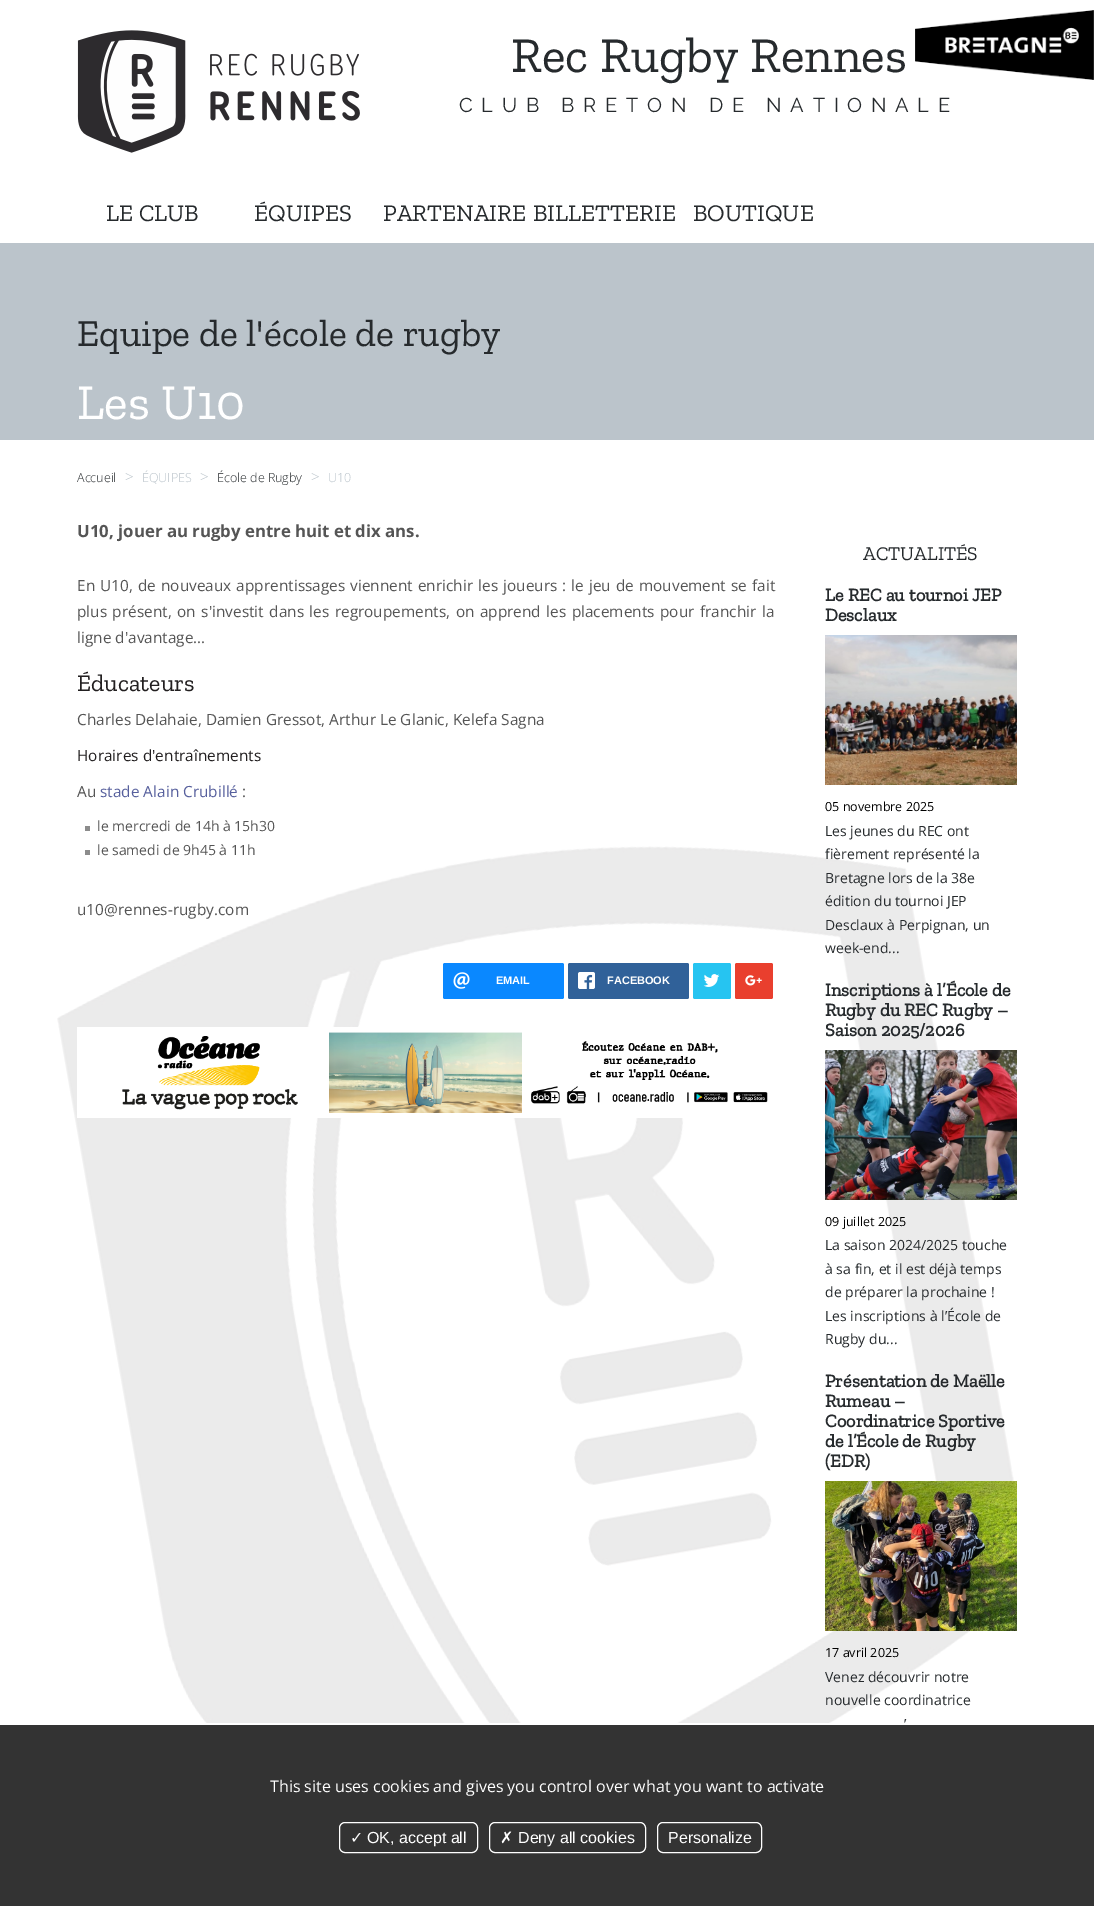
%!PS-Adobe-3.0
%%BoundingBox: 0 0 1094 1906
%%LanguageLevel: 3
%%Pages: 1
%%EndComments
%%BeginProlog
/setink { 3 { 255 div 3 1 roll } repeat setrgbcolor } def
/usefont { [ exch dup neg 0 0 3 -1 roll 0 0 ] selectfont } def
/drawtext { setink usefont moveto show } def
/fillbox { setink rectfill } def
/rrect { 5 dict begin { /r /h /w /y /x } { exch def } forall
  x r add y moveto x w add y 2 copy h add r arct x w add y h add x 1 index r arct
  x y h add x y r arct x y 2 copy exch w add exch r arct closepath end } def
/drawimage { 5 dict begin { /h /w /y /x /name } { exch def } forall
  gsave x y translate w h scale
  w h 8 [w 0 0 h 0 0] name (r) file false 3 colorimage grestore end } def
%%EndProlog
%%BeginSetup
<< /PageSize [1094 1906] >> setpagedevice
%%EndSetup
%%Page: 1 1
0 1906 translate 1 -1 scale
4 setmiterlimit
0 0 1094 1906 255 255 255 fillbox
(assets/img1.rgb) 77 30 283 123 drawimage
(Rec Rugby Rennes) 511 72 /ZillaSlab-Regular 50 38 42 45 drawtext
/Raleway-Regular 20 usefont
459 112 moveto 8.7 0 (CLUB BRETON DE NATIONALE) ashow
(assets/img2.rgb) 915 10 179 70 drawimage
(LE CLUB) 106 221 /ZillaSlab-Regular 24 38 42 45 drawtext
(ÉQUIPES) 254 221 /ZillaSlab-Regular 24 38 42 45 drawtext
(PARTENAIRE) 383 221 /ZillaSlab-Regular 24 38 42 45 drawtext
(BILLETTERIE) 533 221 /ZillaSlab-Regular 24 38 42 45 drawtext
(BOUTIQUE) 693 221 /ZillaSlab-Regular 24 38 42 45 drawtext
0 243 1094 197 187 196 203 fillbox
(Equipe de l'école de rugby) 77 346 /ZillaSlab-Regular 38 38 42 45 drawtext
(Les U10) 77 419 /ZillaSlab-Regular 50 255 255 255 drawtext
(Accueil) 77 482 /OpenSans-Light 12.5 38 42 45 drawtext
(>) 125 482 /OpenSans-Light 15 187 196 203 drawtext
(ÉQUIPES) 142 482 /OpenSans-Light 12.5 187 196 203 drawtext
(>) 200 482 /OpenSans-Light 15 187 196 203 drawtext
(École de Rugby) 217 482 /OpenSans-Light 12.5 38 42 45 drawtext
(>) 311 482 /OpenSans-Light 15 187 196 203 drawtext
(U10) 328 482 /OpenSans-Light 12.5 187 196 203 drawtext
(U10, jouer au rugby entre huit et dix ans.) 77 537 /OpenSans-Bold 16.8 85 85 85 drawtext
/OpenSans-Regular 15.4 usefont
77 591 moveto 1 0 32 (En U10, de nouveaux apprentissages viennent enrichir les joueurs : le jeu de mouvement se fait) widthshow
77 617 moveto 1.4 0 32 (plus présent, on s'investit dans les regroupements, on apprend les placements pour franchir la) widthshow
(ligne d'avantage...) 77 643 /OpenSans-Regular 15.4 85 85 85 drawtext
(Éducateurs) 77 691 /ZillaSlab-Regular 24 34 31 32 drawtext
(Charles Delahaie, Damien Gressot, Arthur Le Glanic, Kelefa Sagna) 77 725 /OpenSans-Regular 15.4 85 85 85 drawtext
(Horaires d'entraînements) 77 761 /OpenSans-Regular 15.4 34 31 32 drawtext
(Au) 77 797 /OpenSans-Regular 15.4 85 85 85 drawtext
(stade Alain Crubillé) 100 797 /OpenSans-Regular 15.4 87 96 157 drawtext
(:) 242 797 /OpenSans-Regular 15.4 85 85 85 drawtext
85 826 5 5 140 140 140 fillbox
(le mercredi de 14h à 15h30) 97 831 /OpenSans-Regular 14 85 85 85 drawtext
(assets/img11.rgb) 57 846 957 877 drawimage
85 850 5 5 140 140 140 fillbox
(le samedi de 9h45 à 11h) 97 855 /OpenSans-Regular 14 85 85 85 drawtext
(u10@rennes-rugby.com) 77 915 /OpenSans-Regular 15.4 85 85 85 drawtext
10 136 255 setink
443 963 121 36 2 rrect fill
(assets/img3.rgb) 453 972 17 17 drawimage
(EMAIL) 496 984 /LiberationSans-Bold 11 255 255 255 drawtext
48 97 153 setink
568 963 121 36 2 rrect fill
(assets/img4.rgb) 578 972 17 17 drawimage
(FACEBOOK) 607 984 /LiberationSans-Bold 11 255 255 255 drawtext
38 196 241 setink
693 963 38 36 2 rrect fill
(assets/img5.rgb) 703 974 17 13 drawimage
233 63 46 setink
735 963 38 36 2 rrect fill
(assets/img6.rgb) 745 975 17 11 drawimage
(assets/img7.rgb) 77 1027 691 91 drawimage
(ACTUALITÉS) 863 560 /ZillaSlab-Regular 19.5 38 42 45 drawtext
(Le REC au tournoi JEP) 825 601 /ZillaSlab-Bold 18.25 38 42 45 drawtext
(Desclaux) 825 621 /ZillaSlab-Bold 18.25 38 42 45 drawtext
(assets/img8.rgb) 825 635 192 150 drawimage
(05 novembre 2025) 825 811 /OpenSans-Regular 12.5 0 0 0 drawtext
(Les jeunes du REC ont) 825 836 /OpenSans-Regular 14 38 42 45 drawtext
(fièrement représenté la) 825 859 /OpenSans-Regular 14 38 42 45 drawtext
(Bretagne lors de la 38e) 825 883 /OpenSans-Regular 14 38 42 45 drawtext
(édition du tournoi JEP) 825 906 /OpenSans-Regular 14 38 42 45 drawtext
(Desclaux à Perpignan, un) 825 930 /OpenSans-Regular 14 38 42 45 drawtext
(week-end...) 825 953 /OpenSans-Regular 14 38 42 45 drawtext
(Inscriptions à l’École de) 825 996 /ZillaSlab-Bold 18.25 38 42 45 drawtext
(Rugby du REC Rugby –) 825 1016 /ZillaSlab-Bold 18.25 38 42 45 drawtext
(Saison 2025/2026) 825 1036 /ZillaSlab-Bold 18.25 38 42 45 drawtext
(assets/img9.rgb) 825 1050 192 150 drawimage
(09 juillet 2025) 825 1226 /OpenSans-Regular 12.5 0 0 0 drawtext
(La saison 2024/2025 touche) 825 1250 /OpenSans-Regular 14 38 42 45 drawtext
(à sa fin, et il est déjà temps) 825 1274 /OpenSans-Regular 14 38 42 45 drawtext
(de préparer la prochaine !) 825 1297 /OpenSans-Regular 14 38 42 45 drawtext
(Les inscriptions à l’École de) 825 1321 /OpenSans-Regular 14 38 42 45 drawtext
(Rugby du...) 825 1344 /OpenSans-Regular 14 38 42 45 drawtext
(Présentation de Maëlle) 825 1387 /ZillaSlab-Bold 18.25 38 42 45 drawtext
(Rumeau –) 825 1407 /ZillaSlab-Bold 18.25 38 42 45 drawtext
(Coordinatrice Sportive) 825 1427 /ZillaSlab-Bold 18.25 38 42 45 drawtext
(de l’École de Rugby) 825 1447 /ZillaSlab-Bold 18.25 38 42 45 drawtext
(\(EDR\)) 825 1467 /ZillaSlab-Bold 18.25 38 42 45 drawtext
(assets/img10.rgb) 825 1481 192 150 drawimage
(17 avril 2025) 825 1657 /OpenSans-Regular 12.5 0 0 0 drawtext
(Venez découvrir notre) 825 1682 /OpenSans-Regular 14 38 42 45 drawtext
(nouvelle coordinatrice) 825 1705 /OpenSans-Regular 14 38 42 45 drawtext
(’) 904 1729 /OpenSans-Regular 14 38 42 45 drawtext
0 1725 1094 181 51 51 51 fillbox
(This site uses cookies and gives you control over what you want to activate) 270 1792 /OpenSans-Regular 16 255 255 255 drawtext
339.5 1822.5 138 30 5.5 rrect stroke
(✓) 350 1843 /DejaVuSans-Regular 16 255 255 255 drawtext
(OK, accept all) 367 1843 /LiberationSans-Regular 16 255 255 255 drawtext
489.5 1822.5 156 30 5.5 rrect stroke
(✗) 500 1843 /DejaVuSans-Regular 16 255 255 255 drawtext
(Deny all cookies) 518 1843 /LiberationSans-Regular 16 255 255 255 drawtext
657.5 1822.5 104 30 5.5 rrect stroke
(Personalize) 668 1843 /LiberationSans-Regular 16 255 255 255 drawtext
showpage
%%EOF
